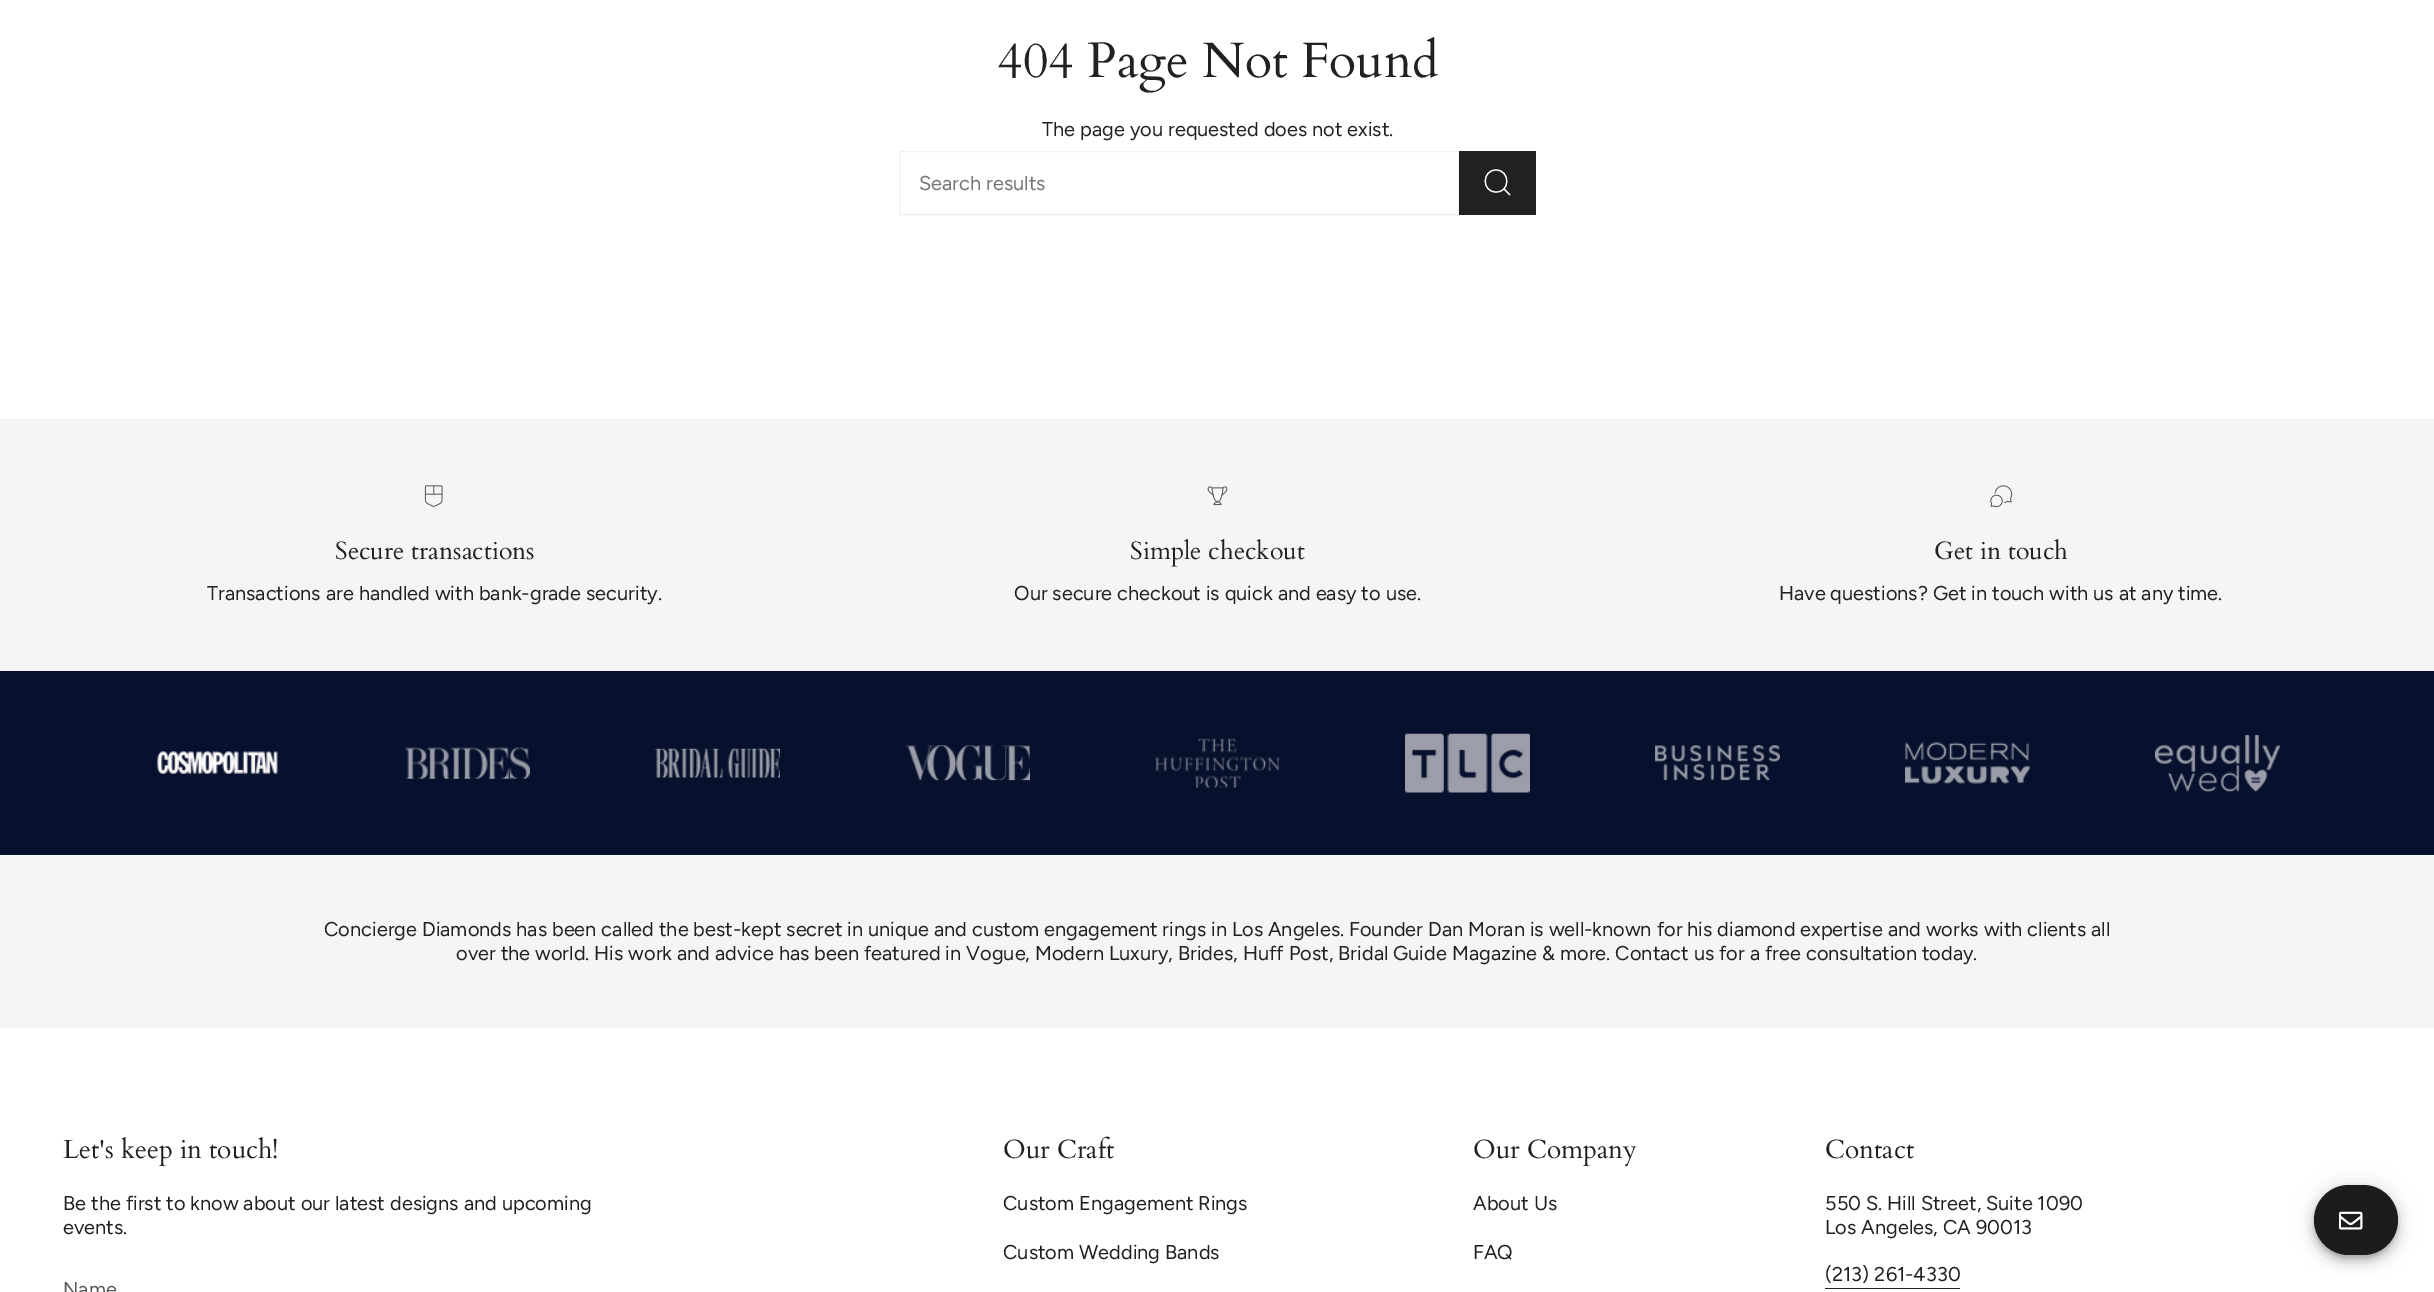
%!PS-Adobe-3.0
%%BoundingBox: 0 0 2434 1292
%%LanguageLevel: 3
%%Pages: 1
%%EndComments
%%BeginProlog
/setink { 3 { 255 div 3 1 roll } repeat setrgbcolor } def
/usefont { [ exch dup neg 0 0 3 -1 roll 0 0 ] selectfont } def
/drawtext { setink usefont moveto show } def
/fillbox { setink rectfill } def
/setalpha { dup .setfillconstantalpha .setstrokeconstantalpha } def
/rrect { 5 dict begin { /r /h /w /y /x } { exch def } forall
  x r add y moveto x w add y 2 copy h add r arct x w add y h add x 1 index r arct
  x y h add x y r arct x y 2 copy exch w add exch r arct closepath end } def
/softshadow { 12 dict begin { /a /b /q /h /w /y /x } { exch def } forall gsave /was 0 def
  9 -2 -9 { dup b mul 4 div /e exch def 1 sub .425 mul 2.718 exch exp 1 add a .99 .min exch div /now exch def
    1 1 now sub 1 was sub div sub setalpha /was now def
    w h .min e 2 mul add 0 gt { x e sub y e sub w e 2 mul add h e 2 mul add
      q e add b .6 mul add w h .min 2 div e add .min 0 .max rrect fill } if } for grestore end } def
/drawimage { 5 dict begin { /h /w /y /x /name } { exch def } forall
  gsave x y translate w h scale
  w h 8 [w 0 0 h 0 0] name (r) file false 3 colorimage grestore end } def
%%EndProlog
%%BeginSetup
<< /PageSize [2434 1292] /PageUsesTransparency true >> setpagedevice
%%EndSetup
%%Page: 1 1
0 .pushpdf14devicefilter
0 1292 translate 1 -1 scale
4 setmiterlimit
0 0 2434 1292 255 255 255 fillbox
(404 Page Not Found) 997 77 /Cardo-Regular 49.9 33 33 33 drawtext
(The page you requested does not exist.) 1042 136 /Figtree-Regular 20 33 33 33 drawtext
240 240 240 setink
899.5 151.5 559 63 rectstroke
(Search results) 919 190 /Figtree-Regular 20 117 117 117 drawtext
1459 151 77 64 33 33 33 fillbox
255 255 255 setink
1.2 setlinewidth
1496 170 moveto 1510.5 170 1510.5 193 1495.5 192 curveto 1481.5 191.5 1482 170 1496 170 curveto closepath 1504 189 moveto 1510 195 lineto stroke
0 0 0 setink
2314 1186 84 70 35 11 0.12 softshadow
2314 1193 84 70 35 6 0.14 softshadow
2315 1190 81 68 34 3 0.2 softshadow
28 28 28 setink
2314 1185 84 70 35 rrect fill
(assets/img1.rgb) 2339 1211 24 19 drawimage
0 419 2434 252 245 245 245 fillbox
(assets/img2.rgb) 424 485 19 22 drawimage
(Secure transactions) 335 559 /Cardo-Regular 25 33 33 33 drawtext
(Transactions are handled with bank-grade security.) 207 600 /Figtree-Regular 20 33 33 33 drawtext
(assets/img3.rgb) 1207 486 21 20 drawimage
(Simple checkout) 1130 559 /Cardo-Regular 25 33 33 33 drawtext
(Our secure checkout is quick and easy to use.) 1014 600 /Figtree-Regular 20 33 33 33 drawtext
(assets/img4.rgb) 1990 485 23 23 drawimage
(Get in touch) 1934 559 /Cardo-Regular 25 33 33 33 drawtext
(Have questions? Get in touch with us at any time.) 1779 600 /Figtree-Regular 20 33 33 33 drawtext
0 671 2434 184 7 16 44 fillbox
(assets/img5.rgb) 156 751 122 23 drawimage
(assets/img6.rgb) 405 747 125 32 drawimage
(assets/img7.rgb) 655 748 125 30 drawimage
(assets/img8.rgb) 905 745 125 36 drawimage
(assets/img9.rgb) 1155 738 125 50 drawimage
(assets/img10.rgb) 1405 733 125 60 drawimage
(assets/img11.rgb) 1655 745 125 36 drawimage
(assets/img12.rgb) 1905 742 125 42 drawimage
(assets/img13.rgb) 2155 734 125 58 drawimage
0 855 2434 173 245 245 245 fillbox
(Concierge Diamonds has been called the best-kept secret in unique and custom engagement rings in Los Angeles. Founder Dan Moran is well-known for his diamond expertise and works with clients all) 324 936 /Figtree-Regular 20 33 33 33 drawtext
(over the world. His work and advice has been featured in Vogue, Modern Luxury, Brides, Huff Post, Bridal Guide Magazine & more. Contact us for a free consultation today.) 456 960 /Figtree-Regular 20 33 33 33 drawtext
(Let's keep in touch!) 63 1158 /Cardo-Regular 26.25 33 33 33 drawtext
(Be the first to know about our latest designs and upcoming) 63 1210 /Figtree-Regular 20 33 33 33 drawtext
(events.) 63 1234 /Figtree-Regular 20 33 33 33 drawtext
(Name) 63 1296 /Figtree-Regular 20 89 89 89 drawtext
(Our Craft) 1003 1158 /Cardo-Regular 26.25 33 33 33 drawtext
(Custom Engagement Rings) 1003 1210 /Figtree-Regular 20 33 33 33 drawtext
(Custom Wedding Bands) 1003 1259 /Figtree-Regular 20 33 33 33 drawtext
(Our Company) 1473 1158 /Cardo-Regular 26.25 33 33 33 drawtext
(About Us) 1473 1210 /Figtree-Regular 20 33 33 33 drawtext
(FAQ) 1473 1259 /Figtree-Regular 20 33 33 33 drawtext
(Contact) 1825 1158 /Cardo-Regular 26.25 33 33 33 drawtext
(550 S. Hill Street, Suite 1090) 1825 1210 /Figtree-Regular 20 33 33 33 drawtext
(Los Angeles, CA 90013) 1825 1234 /Figtree-Regular 20 33 33 33 drawtext
(\(213\) 261-4330) 1825 1281 /Figtree-Regular 20 33 33 33 drawtext
1825 1288 135 1 33 33 33 fillbox
.poppdf14devicefilter showpage
%%EOF
